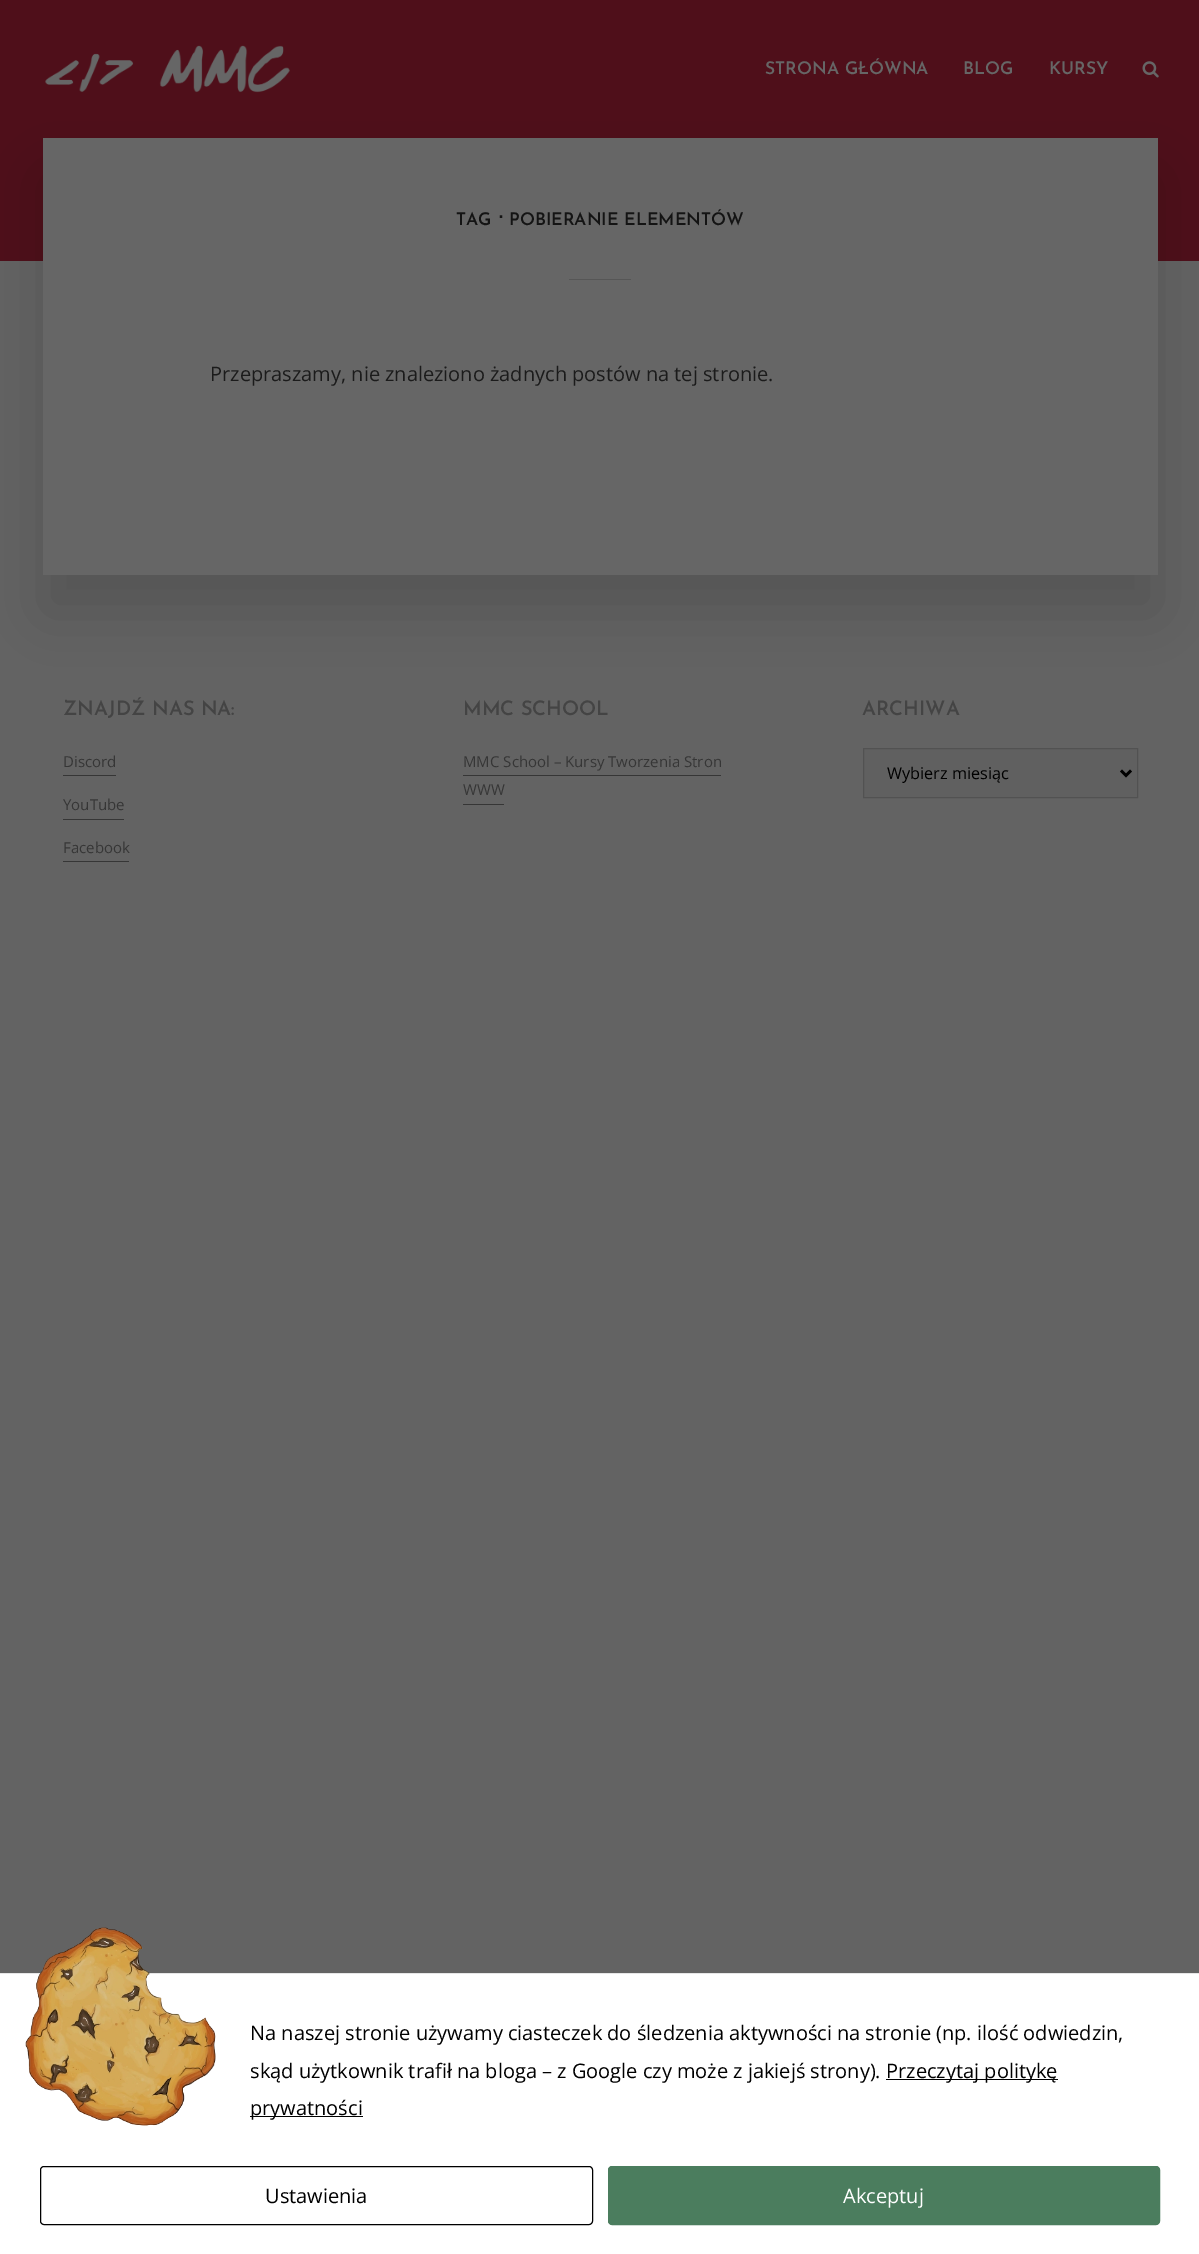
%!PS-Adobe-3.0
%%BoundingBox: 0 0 1199 2254
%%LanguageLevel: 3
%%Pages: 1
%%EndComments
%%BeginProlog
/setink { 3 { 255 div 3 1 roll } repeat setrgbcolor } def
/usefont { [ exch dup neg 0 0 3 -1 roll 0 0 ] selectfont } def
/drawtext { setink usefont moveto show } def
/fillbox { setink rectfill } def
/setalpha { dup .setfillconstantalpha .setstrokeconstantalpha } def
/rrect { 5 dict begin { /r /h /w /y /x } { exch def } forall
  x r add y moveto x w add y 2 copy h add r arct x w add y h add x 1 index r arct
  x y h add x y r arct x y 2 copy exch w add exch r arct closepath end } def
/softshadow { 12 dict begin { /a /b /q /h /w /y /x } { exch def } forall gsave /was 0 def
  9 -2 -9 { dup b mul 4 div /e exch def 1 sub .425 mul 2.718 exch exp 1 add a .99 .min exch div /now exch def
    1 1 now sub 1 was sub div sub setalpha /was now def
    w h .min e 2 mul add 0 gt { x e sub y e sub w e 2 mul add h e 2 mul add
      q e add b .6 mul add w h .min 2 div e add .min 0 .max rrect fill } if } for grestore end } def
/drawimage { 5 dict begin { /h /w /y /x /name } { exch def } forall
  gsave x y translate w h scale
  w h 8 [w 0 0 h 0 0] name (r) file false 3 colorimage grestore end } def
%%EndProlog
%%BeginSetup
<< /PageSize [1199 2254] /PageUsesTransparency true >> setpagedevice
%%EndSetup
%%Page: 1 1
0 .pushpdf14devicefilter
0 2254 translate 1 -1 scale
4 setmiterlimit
0 0 1199 2254 99 99 99 fillbox
0 0 1199 261 79 15 26 fillbox
0 0 0 setink
43 175 1115 438 0 31 0.15 softshadow
(assets/img1.rgb) 45 45 245 48 drawimage
(STRONA GŁÓWNA) 765 74 /JosefinSans-SemiBold 17.5 102 102 102 drawtext
(BLOG) 963 74 /JosefinSans-SemiBold 17.5 102 102 102 drawtext
(KURSY) 1049 74 /JosefinSans-SemiBold 17.5 102 102 102 drawtext
(assets/img2.rgb) 1142 61 17 17 drawimage
43 138 1115 437 102 102 102 fillbox
(TAG) 456 225 /JosefinSans-SemiBold 17.5 20 20 20 drawtext
(⋅) 498 223 /DejaVuSans-Bold 17.5 20 20 20 drawtext
(POBIERANIE ELEMENTÓW) 509 225 /JosefinSans-SemiBold 17.5 20 20 20 drawtext
569 279 62 1 86 86 86 fillbox
(Przepraszamy, nie znaleziono żadnych postów na tej stronie.) 210 381 /OpenSans-Regular 20 27 27 27 drawtext
(ZNAJDŹ NAS NA:) 63 715 /JosefinSans-SemiBold 20 68 68 68 drawtext
(Discord) 63 767 /OpenSans-Regular 15 54 54 54 drawtext
63 775 53 1 54 54 54 fillbox
(YouTube) 63 810 /OpenSans-Regular 15 54 54 54 drawtext
63 819 61 1 54 54 54 fillbox
(Facebook) 63 853 /OpenSans-Regular 15 54 54 54 drawtext
63 861 66 1 54 54 54 fillbox
(MMC SCHOOL) 463 715 /JosefinSans-SemiBold 20 68 68 68 drawtext
(MMC School – Kursy Tworzenia Stron) 463 767 /OpenSans-Regular 15 54 54 54 drawtext
463 775 258 1 54 54 54 fillbox
(WWW) 463 795 /OpenSans-Regular 15 54 54 54 drawtext
463 804 41 1 54 54 54 fillbox
(ARCHIWA) 862 715 /JosefinSans-SemiBold 20 68 68 68 drawtext
96 96 96 setink
863.5 748.5 moveto 1137.5 748.5 lineto 1137.5 797.5 lineto 863.5 797.5 lineto closepath gsave fill grestore
82 82 82 setink
stroke
0 0 0 setink
2.5 setlinewidth
1121 770.5 moveto 1126 775.5 lineto 1131 770.5 lineto stroke
(Wybierz miesiąc) 887 779 /OpenSans-Regular 16.25 0 0 0 drawtext
0 1974 1199 280 255 255 255 fillbox
0 1973 1199 1 230 230 230 fillbox
(assets/img3.rgb) 25 1927 191 199 drawimage
(Na naszej stronie używamy ciasteczek do śledzenia aktywności na stronie \(np. ilość odwiedzin,) 250 2040 /OpenSans-Regular 20 0 0 0 drawtext
(skąd użytkownik trafił na bloga – z Google czy może z jakiejś strony\).) 250 2078 /OpenSans-Regular 20 0 0 0 drawtext
886 2079 172 1 0 0 0 fillbox
(Przeczytaj politykę) 886 2078 /OpenSans-Regular 20 0 0 0 drawtext
250 2116 113 1 0 0 0 fillbox
(prywatności) 250 2115 /OpenSans-Regular 20 0 0 0 drawtext
1 setlinewidth
40.5 2166.5 552 58 3.5 rrect stroke
(Ustawienia) 265 2203 /OpenSans-Regular 20 0 0 0 drawtext
75 125 94 setink
608.5 2166.5 551 58 3.5 rrect gsave fill grestore
stroke
(Akceptuj) 843 2203 /OpenSans-Regular 20 255 255 255 drawtext
.poppdf14devicefilter showpage
%%EOF
